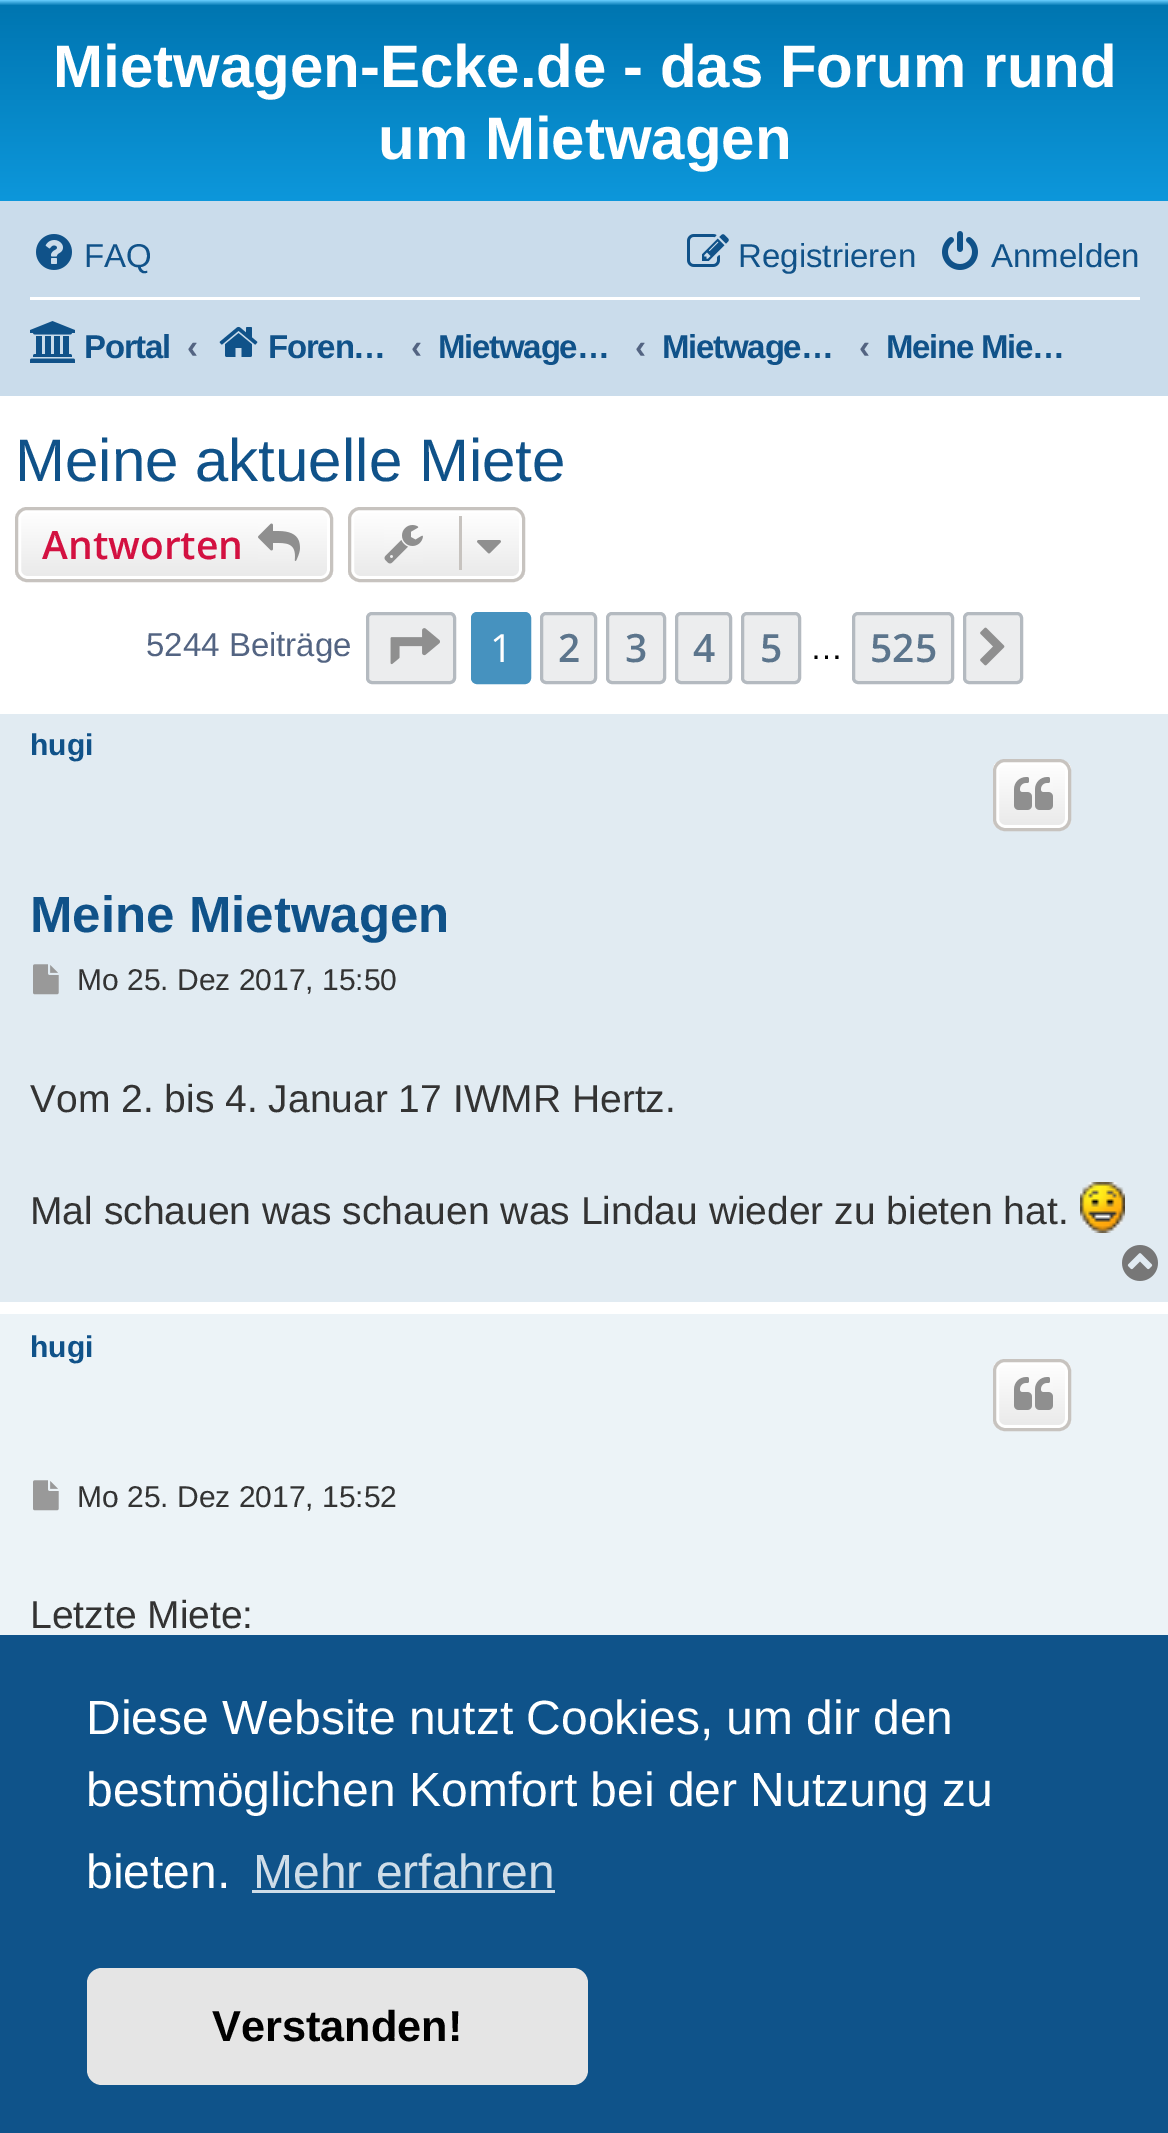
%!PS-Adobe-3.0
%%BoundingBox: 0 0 1168 2133
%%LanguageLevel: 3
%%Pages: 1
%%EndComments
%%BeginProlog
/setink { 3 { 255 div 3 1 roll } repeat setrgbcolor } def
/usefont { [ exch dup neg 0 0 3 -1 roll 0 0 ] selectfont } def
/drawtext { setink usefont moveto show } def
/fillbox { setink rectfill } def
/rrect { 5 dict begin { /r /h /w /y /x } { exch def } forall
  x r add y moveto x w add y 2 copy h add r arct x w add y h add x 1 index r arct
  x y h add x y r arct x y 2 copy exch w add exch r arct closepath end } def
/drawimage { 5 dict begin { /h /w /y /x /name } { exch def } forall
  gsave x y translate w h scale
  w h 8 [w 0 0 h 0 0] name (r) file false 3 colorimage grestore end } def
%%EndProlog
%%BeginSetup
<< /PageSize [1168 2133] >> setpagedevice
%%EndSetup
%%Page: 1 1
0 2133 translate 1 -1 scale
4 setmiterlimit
0 0 1168 2133 255 255 255 fillbox
gsave 0 0 moveto 1168 0 lineto 1168 201 lineto 0 201 lineto closepath clip newpath
<< /ShadingType 2 /ColorSpace /DeviceRGB /Coords [585 0 585 276] /Extend [true true] /Function << /FunctionType 3 /Domain [0 1] /Functions [<< /FunctionType 2 /Domain [0 1] /C0 [0.416 0.808 1] /C1 [0 0.463 0.694] /N 1 >> << /FunctionType 2 /Domain [0 1] /C0 [0 0.463 0.694] /C1 [0.071 0.639 0.922] /N 1 >>] /Bounds [0.02] /Encode [0 1 0 1] >> >> shfill grestore
(Mietwagen-Ecke.de - das Forum rund) 53 87 /LiberationSans-Bold 60 255 255 255 drawtext
(um Mietwagen) 378 159 /LiberationSans-Bold 60 255 255 255 drawtext
0 201 1168 195 202 220 235 fillbox
(assets/img1.rgb) 36 234 36 36 drawimage
(FAQ) 84 267 /LiberationSans-Regular 33 16 82 137 drawtext
(assets/img2.rgb) 687 234 42 33 drawimage
(Registrieren) 738 267 /LiberationSans-Regular 33 16 82 137 drawtext
(assets/img3.rgb) 942 231 36 39 drawimage
(Anmelden) 991 267 /LiberationSans-Regular 33 16 82 137 drawtext
30 297 1110 3 255 255 255 fillbox
(assets/img4.rgb) 30 321 45 42 drawimage
/LiberationSans-Bold 33 usefont
16 82 137 setink
84 358 moveto -1.25 0 (Portal) ashow
(‹) 187 358 /LiberationSans-Bold 33 83 100 130 drawtext
(assets/img5.rgb) 219 326 39 31 drawimage
16 82 137 setink
268 358 moveto -1.25 0 (Foren…) ashow
(‹) 411 358 /LiberationSans-Bold 33 83 100 130 drawtext
16 82 137 setink
438 358 moveto -1.25 0 (Mietwage…) ashow
(‹) 635 358 /LiberationSans-Bold 33 83 100 130 drawtext
16 82 137 setink
662 358 moveto -1.25 0 (Mietwage…) ashow
(‹) 859 358 /LiberationSans-Bold 33 83 100 130 drawtext
16 82 137 setink
886 358 moveto -1.25 0 (Meine Mie…) ashow
(Meine aktuelle Miete) 15 481 /LiberationSans-Regular 60 16 82 137 drawtext
gsave
15 507 318 75 12 rrect clip newpath
gsave 15 510 moveto 333 510 lineto 333 579 lineto 15 579 lineto closepath clip newpath
<< /ShadingType 2 /ColorSpace /DeviceRGB /Coords [174 510 174 579] /Extend [true true] /Function << /FunctionType 2 /Domain [0 1] /C0 [1 1 1] /C1 [0.914 0.914 0.914] /N 1 >> >> shfill grestore
grestore
255 255 255 setink
3 setlinewidth
19.5 511.5 309 66 7.5 rrect stroke
199 195 191 setink
16.5 508.5 315 72 10.5 rrect stroke
(Antworten) 42 559 /OpenSans-SemiBold 39 211 17 65 drawtext
(assets/img6.rgb) 258 523 42 38 drawimage
gsave
348 507 177 75 12 rrect clip newpath
gsave 348 510 moveto 525 510 lineto 525 579 lineto 348 579 lineto closepath clip newpath
<< /ShadingType 2 /ColorSpace /DeviceRGB /Coords [437 510 437 579] /Extend [true true] /Function << /FunctionType 2 /Domain [0 1] /C0 [1 1 1] /C1 [0.914 0.914 0.914] /N 1 >> >> shfill grestore
grestore
255 255 255 setink
352.5 511.5 168 66 7.5 rrect stroke
199 195 191 setink
349.5 508.5 174 72 10.5 rrect stroke
(assets/img7.rgb) 384 525 39 39 drawimage
459 516 3 54 199 195 191 fillbox
(assets/img8.rgb) 477 540 24 14 drawimage
(5244 Beiträge) 146 656 /LiberationSans-Regular 33 83 100 130 drawtext
236 237 238 setink
367.5 613.5 87 69 4.5 rrect gsave fill grestore
180 186 192 setink
stroke
(assets/img9.rgb) 390 628 50 37 drawimage
70 146 191 setink
472.5 613.5 57 69 4.5 rrect gsave fill grestore
stroke
(1) 490 662 /OpenSans-Regular 39 255 255 255 drawtext
236 237 238 setink
541.5 613.5 54 69 4.5 rrect gsave fill grestore
180 186 192 setink
stroke
(2) 558 662 /OpenSans-SemiBold 39 92 117 140 drawtext
236 237 238 setink
607.5 613.5 57 69 4.5 rrect gsave fill grestore
180 186 192 setink
stroke
(3) 625 662 /OpenSans-SemiBold 39 92 117 140 drawtext
236 237 238 setink
676.5 613.5 54 69 4.5 rrect gsave fill grestore
180 186 192 setink
stroke
(4) 693 662 /OpenSans-SemiBold 39 92 117 140 drawtext
236 237 238 setink
742.5 613.5 57 69 4.5 rrect gsave fill grestore
180 186 192 setink
stroke
(5) 760 662 /OpenSans-SemiBold 39 92 117 140 drawtext
(…) 810 659 /LiberationSans-Regular 33 0 0 0 drawtext
236 237 238 setink
853.5 613.5 99 69 4.5 rrect gsave fill grestore
180 186 192 setink
stroke
(525) 870 662 /OpenSans-SemiBold 39 92 117 140 drawtext
236 237 238 setink
964.5 613.5 57 69 4.5 rrect gsave fill grestore
180 186 192 setink
stroke
(assets/img10.rgb) 980 627 25 39 drawimage
0 714 1168 588 225 235 242 fillbox
(hugi) 30 755 /LiberationSans-Bold 30 16 82 137 drawtext
gsave
993 759 78 72 12 rrect clip newpath
gsave 993 762 moveto 1071 762 lineto 1071 828 lineto 993 828 lineto closepath clip newpath
<< /ShadingType 2 /ColorSpace /DeviceRGB /Coords [1032 762 1032 828] /Extend [true true] /Function << /FunctionType 2 /Domain [0 1] /C0 [1 1 1] /C1 [0.914 0.914 0.914] /N 1 >> >> shfill grestore
grestore
255 255 255 setink
997.5 763.5 69 63 7.5 rrect stroke
199 195 191 setink
994.5 760.5 75 69 10.5 rrect stroke
(assets/img11.rgb) 1014 777 39 33 drawimage
(Meine Mietwagen) 30 932 /LiberationSans-Bold 51 16 82 137 drawtext
(assets/img12.rgb) 33 964 26 31 drawimage
(Mo 25. Dez 2017, 15:50) 77 990 /LiberationSans-Regular 30 51 51 51 drawtext
(Vom 2. bis 4. Januar 17 IWMR Hertz.) 30 1112 /LiberationSans-Regular 39 51 51 51 drawtext
(Mal schauen was schauen was Lindau wieder zu bieten hat.) 30 1224 /LiberationSans-Regular 39 51 51 51 drawtext
(assets/img13.rgb) 1080 1182 45 51 drawimage
(assets/img14.rgb) 1122 1245 36 36 drawimage
0 1314 1168 321 236 243 247 fillbox
(hugi) 30 1357 /LiberationSans-Bold 30 16 82 137 drawtext
gsave
993 1359 78 72 12 rrect clip newpath
gsave 993 1362 moveto 1071 1362 lineto 1071 1428 lineto 993 1428 lineto closepath clip newpath
<< /ShadingType 2 /ColorSpace /DeviceRGB /Coords [1032 1362 1032 1428] /Extend [true true] /Function << /FunctionType 2 /Domain [0 1] /C0 [1 1 1] /C1 [0.914 0.914 0.914] /N 1 >> >> shfill grestore
grestore
255 255 255 setink
997.5 1363.5 69 63 7.5 rrect stroke
199 195 191 setink
994.5 1360.5 75 69 10.5 rrect stroke
(assets/img11.rgb) 1014 1377 39 33 drawimage
(assets/img15.rgb) 33 1480 26 31 drawimage
(Mo 25. Dez 2017, 15:52) 77 1507 /LiberationSans-Regular 30 51 51 51 drawtext
(Letzte Miete:) 30 1628 /LiberationSans-Regular 39 51 51 51 drawtext
0 1635 1168 498 15 83 138 fillbox
(Diese Website nutzt Cookies, um dir den) 86 1734 /LiberationSans-Regular 48 255 255 255 drawtext
(bestmöglichen Komfort bei der Nutzung zu) 86 1806 /LiberationSans-Regular 48 255 255 255 drawtext
(bieten.) 86 1888 /LiberationSans-Regular 48 255 255 255 drawtext
(Mehr erfahren) 253 1888 /LiberationSans-Regular 48 207 221 232 drawtext
252 1890 303 3 207 221 232 fillbox
229 229 229 setink
87 1968 501 117 15 rrect fill
(Verstanden!) 212 2041 /LiberationSans-Bold 43.25 0 0 0 drawtext
showpage
%%EOF
